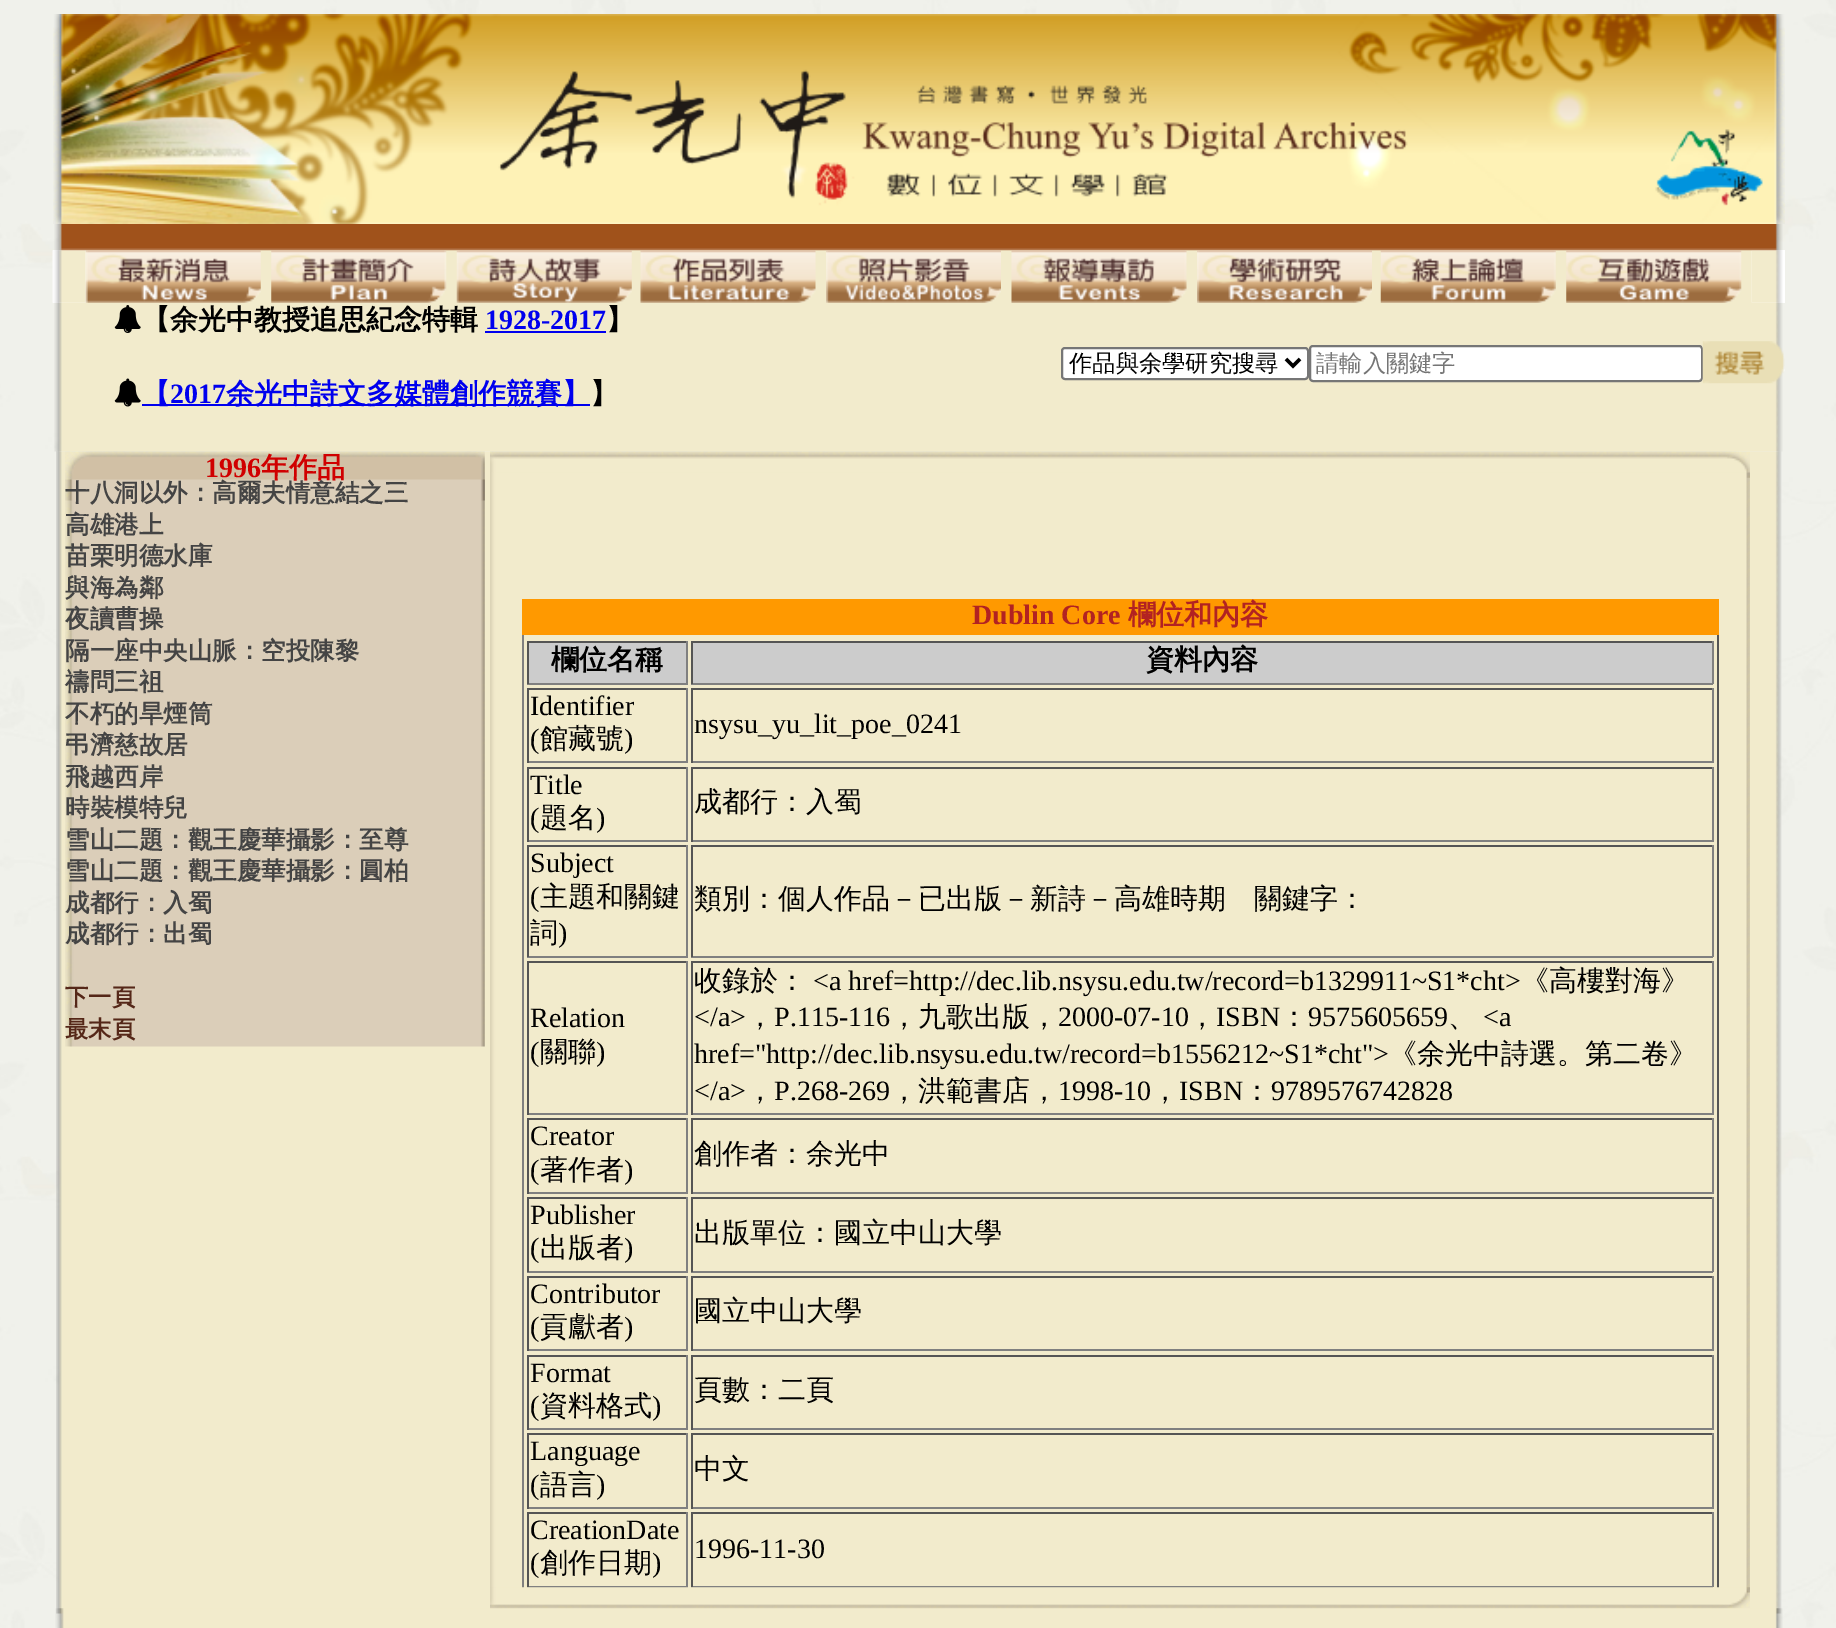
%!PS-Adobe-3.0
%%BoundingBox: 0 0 1836 1628
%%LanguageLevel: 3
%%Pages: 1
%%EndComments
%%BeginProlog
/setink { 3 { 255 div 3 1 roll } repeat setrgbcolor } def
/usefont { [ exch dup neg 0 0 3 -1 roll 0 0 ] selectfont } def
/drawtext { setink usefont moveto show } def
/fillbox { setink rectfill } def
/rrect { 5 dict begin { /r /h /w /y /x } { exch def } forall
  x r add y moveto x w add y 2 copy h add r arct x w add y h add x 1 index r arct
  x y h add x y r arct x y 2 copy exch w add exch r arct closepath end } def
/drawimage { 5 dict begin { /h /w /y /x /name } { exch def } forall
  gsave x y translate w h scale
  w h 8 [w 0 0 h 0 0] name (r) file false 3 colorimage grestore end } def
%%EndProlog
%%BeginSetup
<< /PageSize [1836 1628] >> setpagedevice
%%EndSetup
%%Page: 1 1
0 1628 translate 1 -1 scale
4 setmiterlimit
0 0 1836 1628 255 255 255 fillbox
(assets/img1.rgb) 0 0 1836 1628 drawimage
(assets/img2.rgb) 53 14 1732 210 drawimage
53 250 1732 53 255 255 255 fillbox
(assets/img4.rgb) 52 250 34 53 drawimage
86 250 1666 53 242 235 204 fillbox
(assets/img14.rgb) 1751 250 32 53 drawimage
(assets/img3.rgb) 54 224 1729 27 drawimage
(assets/img15.rgb) 54 302 1729 150 drawimage
(assets/img5.rgb) 85 250 176 53 drawimage
(assets/img6.rgb) 271 250 176 53 drawimage
(assets/img7.rgb) 456 250 176 53 drawimage
(assets/img8.rgb) 640 250 176 53 drawimage
(assets/img9.rgb) 826 250 175 53 drawimage
(assets/img10.rgb) 1011 250 176 53 drawimage
(assets/img11.rgb) 1197 250 175 53 drawimage
(assets/img12.rgb) 1380 250 176 53 drawimage
(assets/img13.rgb) 1566 250 176 53 drawimage
(assets/img16.rgb) 114 305 27 28 drawimage
(【余光中教授追思紀念特輯) 142 329 /WenQuanYiZenHei-Bold 28 0 0 0 drawtext
(1928-2017) 485 329 /LiberationSerif-Bold 28 0 0 238 drawtext
485 331 121 2 0 0 238 fillbox
(】) 606 329 /WenQuanYiZenHei-Bold 28 0 0 0 drawtext
(assets/img17.rgb) 114 378 27 29 drawimage
142 404 448 2 0 0 238 fillbox
(【) 142 403 /WenQuanYiZenHei-Bold 28 0 0 238 drawtext
(2017) 170 403 /LiberationSerif-Bold 28 0 0 238 drawtext
(余光中詩文多媒體創作競賽】) 226 403 /WenQuanYiZenHei-Bold 28 0 0 238 drawtext
(】) 590 403 /WenQuanYiZenHei-Bold 28 0 0 0 drawtext
255 255 255 setink
1062 348 246 31 3 rrect gsave fill grestore
118 118 118 setink
2 setlinewidth
stroke
0 0 0 setink
3.5 setlinewidth
1286 359 moveto 1293 366 lineto 1300 359 lineto stroke
(作品與余學研究搜尋) 1069 371 /WenQuanYiZenHei-Medium 23.25 0 0 0 drawtext
255 255 255 setink
1310 346 392 35 3 rrect gsave fill grestore
118 118 118 setink
2 setlinewidth
stroke
(請輸入關鍵字) 1316 371 /WenQuanYiZenHei-Medium 23.25 117 117 117 drawtext
(assets/img18.rgb) 1702 341 83 43 drawimage
(assets/img19.rgb) 56 451 1726 1163 drawimage
(assets/img20.rgb) 65 451 420 50 drawimage
(1996) 205 477 /LiberationSerif-Bold 28 208 0 0 drawtext
(assets/img21.rgb) 65 479 420 568 drawimage
(年作品) 261 477 /WenQuanYiZenHei-Bold 28 208 0 0 drawtext
(十八洞以外：高爾夫情意結之三) 65 501 /WenQuanYiZenHei-Bold 24.5 68 68 68 drawtext
(高雄港上) 65 533 /WenQuanYiZenHei-Bold 24.5 68 68 68 drawtext
(苗栗明德水庫) 65 564 /WenQuanYiZenHei-Bold 24.5 68 68 68 drawtext
(與海為鄰) 65 596 /WenQuanYiZenHei-Bold 24.5 68 68 68 drawtext
(夜讀曹操) 65 627 /WenQuanYiZenHei-Bold 24.5 68 68 68 drawtext
(隔一座中央山脈：空投陳黎) 65 659 /WenQuanYiZenHei-Bold 24.5 68 68 68 drawtext
(禱問三祖) 65 690 /WenQuanYiZenHei-Bold 24.5 68 68 68 drawtext
(不朽的旱煙筒) 65 722 /WenQuanYiZenHei-Bold 24.5 68 68 68 drawtext
(弔濟慈故居) 65 753 /WenQuanYiZenHei-Bold 24.5 68 68 68 drawtext
(飛越西岸) 65 785 /WenQuanYiZenHei-Bold 24.5 68 68 68 drawtext
(時裝模特兒) 65 816 /WenQuanYiZenHei-Bold 24.5 68 68 68 drawtext
(雪山二題：觀王慶華攝影：至尊) 65 848 /WenQuanYiZenHei-Bold 24.5 68 68 68 drawtext
(雪山二題：觀王慶華攝影：圓柏) 65 879 /WenQuanYiZenHei-Bold 24.5 68 68 68 drawtext
(成都行：入蜀) 65 911 /WenQuanYiZenHei-Bold 24.5 68 68 68 drawtext
(成都行：出蜀) 65 942 /WenQuanYiZenHei-Bold 24.5 68 68 68 drawtext
(下一頁) 65 1005 /WenQuanYiZenHei-Bold 23.25 85 39 24 drawtext
(最末頁) 65 1037 /WenQuanYiZenHei-Bold 23.25 85 39 24 drawtext
(assets/img22.rgb) 490 451 1260 27 drawimage
(assets/img23.rgb) 490 472 1260 1121 drawimage
1717 635 2 958 85 85 85 fillbox
522 635 2 958 128 128 128 fillbox
522 599 1197 36 255 153 0 fillbox
(Dublin Core) 972 624 /LiberationSerif-Bold 28 178 34 34 drawtext
(欄位和內容) 1128 624 /WenQuanYiZenHei-Bold 28 178 34 34 drawtext
529 643 157 40 204 204 204 fillbox
527 641 161 2 85 85 85 fillbox
686 641 2 43 128 128 128 fillbox
527 683 161 2 128 128 128 fillbox
527 641 2 43 85 85 85 fillbox
(欄位名稱) 551 669 /WenQuanYiZenHei-Bold 28 0 0 0 drawtext
693 643 1019 40 204 204 204 fillbox
691 641 1022 2 85 85 85 fillbox
1712 641 2 43 128 128 128 fillbox
691 683 1022 2 128 128 128 fillbox
691 641 2 43 85 85 85 fillbox
(資料內容) 1146 669 /WenQuanYiZenHei-Bold 28 0 0 0 drawtext
527 688 161 2 85 85 85 fillbox
686 688 2 75 128 128 128 fillbox
527 761 161 2 128 128 128 fillbox
527 688 2 75 85 85 85 fillbox
(Identifier) 530 715 /LiberationSerif-Regular 28 0 0 0 drawtext
(\() 530 748 /LiberationSerif-Regular 28 0 0 0 drawtext
(館藏號) 540 748 /WenQuanYiZenHei-Medium 28 0 0 0 drawtext
(\)) 624 748 /LiberationSerif-Regular 28 0 0 0 drawtext
691 688 1022 2 85 85 85 fillbox
1712 688 2 75 128 128 128 fillbox
691 761 1022 2 128 128 128 fillbox
691 688 2 75 85 85 85 fillbox
(nsysu_yu_lit_poe_0241) 694 733 /LiberationSerif-Regular 28 0 0 0 drawtext
527 767 161 2 85 85 85 fillbox
686 767 2 75 128 128 128 fillbox
527 840 161 2 128 128 128 fillbox
527 767 2 75 85 85 85 fillbox
(Title) 530 794 /LiberationSerif-Regular 28 0 0 0 drawtext
(\() 530 827 /LiberationSerif-Regular 28 0 0 0 drawtext
(題名) 540 827 /WenQuanYiZenHei-Medium 28 0 0 0 drawtext
(\)) 596 827 /LiberationSerif-Regular 28 0 0 0 drawtext
691 767 1022 2 85 85 85 fillbox
1712 767 2 75 128 128 128 fillbox
691 840 1022 2 128 128 128 fillbox
691 767 2 75 85 85 85 fillbox
(成都行：入蜀) 694 811 /WenQuanYiZenHei-Medium 28 0 0 0 drawtext
527 845 161 2 85 85 85 fillbox
686 845 2 112 128 128 128 fillbox
527 956 161 2 128 128 128 fillbox
527 845 2 112 85 85 85 fillbox
(Subject) 530 872 /LiberationSerif-Regular 28 0 0 0 drawtext
(\() 530 906 /LiberationSerif-Regular 28 0 0 0 drawtext
(主題和關鍵) 540 906 /WenQuanYiZenHei-Medium 28 0 0 0 drawtext
(詞) 530 942 /WenQuanYiZenHei-Medium 28 0 0 0 drawtext
(\)) 558 942 /LiberationSerif-Regular 28 0 0 0 drawtext
691 845 1022 2 85 85 85 fillbox
1712 845 2 112 128 128 128 fillbox
691 956 1022 2 128 128 128 fillbox
691 845 2 112 85 85 85 fillbox
(類別：個人作品－已出版－新詩－高雄時期　關鍵字：) 694 908 /WenQuanYiZenHei-Medium 28 0 0 0 drawtext
527 961 161 2 85 85 85 fillbox
686 961 2 154 128 128 128 fillbox
527 1113 161 2 128 128 128 fillbox
527 961 2 154 85 85 85 fillbox
(Relation) 530 1027 /LiberationSerif-Regular 28 0 0 0 drawtext
(\() 530 1061 /LiberationSerif-Regular 28 0 0 0 drawtext
(關聯) 540 1061 /WenQuanYiZenHei-Medium 28 0 0 0 drawtext
(\)) 596 1061 /LiberationSerif-Regular 28 0 0 0 drawtext
691 961 1022 2 85 85 85 fillbox
1712 961 2 154 128 128 128 fillbox
691 1113 1022 2 128 128 128 fillbox
691 961 2 154 85 85 85 fillbox
(收錄於：) 694 990 /WenQuanYiZenHei-Medium 28 0 0 0 drawtext
(<a href=http://dec.lib.nsysu.edu.tw/record=b1329911~S1*cht>) 813 990 /LiberationSerif-Regular 28 0 0 0 drawtext
(《高樓對海》) 1521 990 /WenQuanYiZenHei-Medium 28 0 0 0 drawtext
(</a>) 694 1026 /LiberationSerif-Regular 28 0 0 0 drawtext
(，) 746 1026 /WenQuanYiZenHei-Medium 28 0 0 0 drawtext
(P.115-116) 774 1026 /LiberationSerif-Regular 28 0 0 0 drawtext
(，九歌出版，) 890 1026 /WenQuanYiZenHei-Medium 28 0 0 0 drawtext
(2000-07-10) 1058 1026 /LiberationSerif-Regular 28 0 0 0 drawtext
(，) 1188 1026 /WenQuanYiZenHei-Medium 28 0 0 0 drawtext
(ISBN) 1216 1026 /LiberationSerif-Regular 28 0 0 0 drawtext
(：) 1280 1026 /WenQuanYiZenHei-Medium 28 0 0 0 drawtext
(9575605659) 1308 1026 /LiberationSerif-Regular 28 0 0 0 drawtext
(、) 1448 1026 /WenQuanYiZenHei-Medium 28 0 0 0 drawtext
(<a) 1483 1026 /LiberationSerif-Regular 28 0 0 0 drawtext
(href="http://dec.lib.nsysu.edu.tw/record=b1556212~S1*cht">) 694 1063 /LiberationSerif-Regular 28 0 0 0 drawtext
(《余光中詩選。第二卷》) 1389 1063 /WenQuanYiZenHei-Medium 28 0 0 0 drawtext
(</a>) 694 1100 /LiberationSerif-Regular 28 0 0 0 drawtext
(，) 746 1100 /WenQuanYiZenHei-Medium 28 0 0 0 drawtext
(P.268-269) 774 1100 /LiberationSerif-Regular 28 0 0 0 drawtext
(，洪範書店，) 890 1100 /WenQuanYiZenHei-Medium 28 0 0 0 drawtext
(1998-10) 1058 1100 /LiberationSerif-Regular 28 0 0 0 drawtext
(，) 1151 1100 /WenQuanYiZenHei-Medium 28 0 0 0 drawtext
(ISBN) 1179 1100 /LiberationSerif-Regular 28 0 0 0 drawtext
(：) 1243 1100 /WenQuanYiZenHei-Medium 28 0 0 0 drawtext
(9789576742828) 1271 1100 /LiberationSerif-Regular 28 0 0 0 drawtext
527 1118 161 2 85 85 85 fillbox
686 1118 2 76 128 128 128 fillbox
527 1192 161 2 128 128 128 fillbox
527 1118 2 76 85 85 85 fillbox
(Creator) 530 1145 /LiberationSerif-Regular 28 0 0 0 drawtext
(\() 530 1179 /LiberationSerif-Regular 28 0 0 0 drawtext
(著作者) 540 1179 /WenQuanYiZenHei-Medium 28 0 0 0 drawtext
(\)) 624 1179 /LiberationSerif-Regular 28 0 0 0 drawtext
691 1118 1022 2 85 85 85 fillbox
1712 1118 2 76 128 128 128 fillbox
691 1192 1022 2 128 128 128 fillbox
691 1118 2 76 85 85 85 fillbox
(創作者：余光中) 694 1163 /WenQuanYiZenHei-Medium 28 0 0 0 drawtext
527 1197 161 2 85 85 85 fillbox
686 1197 2 75 128 128 128 fillbox
527 1271 161 2 128 128 128 fillbox
527 1197 2 75 85 85 85 fillbox
(Publisher) 530 1224 /LiberationSerif-Regular 28 0 0 0 drawtext
(\() 530 1257 /LiberationSerif-Regular 28 0 0 0 drawtext
(出版者) 540 1257 /WenQuanYiZenHei-Medium 28 0 0 0 drawtext
(\)) 624 1257 /LiberationSerif-Regular 28 0 0 0 drawtext
691 1197 1022 2 85 85 85 fillbox
1712 1197 2 75 128 128 128 fillbox
691 1271 1022 2 128 128 128 fillbox
691 1197 2 75 85 85 85 fillbox
(出版單位：國立中山大學) 694 1242 /WenQuanYiZenHei-Medium 28 0 0 0 drawtext
527 1276 161 2 85 85 85 fillbox
686 1276 2 75 128 128 128 fillbox
527 1349 161 2 128 128 128 fillbox
527 1276 2 75 85 85 85 fillbox
(Contributor) 530 1303 /LiberationSerif-Regular 28 0 0 0 drawtext
(\() 530 1336 /LiberationSerif-Regular 28 0 0 0 drawtext
(貢獻者) 540 1336 /WenQuanYiZenHei-Medium 28 0 0 0 drawtext
(\)) 624 1336 /LiberationSerif-Regular 28 0 0 0 drawtext
691 1276 1022 2 85 85 85 fillbox
1712 1276 2 75 128 128 128 fillbox
691 1349 1022 2 128 128 128 fillbox
691 1276 2 75 85 85 85 fillbox
(國立中山大學) 694 1320 /WenQuanYiZenHei-Medium 28 0 0 0 drawtext
527 1355 161 2 85 85 85 fillbox
686 1355 2 75 128 128 128 fillbox
527 1428 161 2 128 128 128 fillbox
527 1355 2 75 85 85 85 fillbox
(Format) 530 1382 /LiberationSerif-Regular 28 0 0 0 drawtext
(\() 530 1415 /LiberationSerif-Regular 28 0 0 0 drawtext
(資料格式) 540 1415 /WenQuanYiZenHei-Medium 28 0 0 0 drawtext
(\)) 652 1415 /LiberationSerif-Regular 28 0 0 0 drawtext
691 1355 1022 2 85 85 85 fillbox
1712 1355 2 75 128 128 128 fillbox
691 1428 1022 2 128 128 128 fillbox
691 1355 2 75 85 85 85 fillbox
(頁數：二頁) 694 1399 /WenQuanYiZenHei-Medium 28 0 0 0 drawtext
527 1433 161 2 85 85 85 fillbox
686 1433 2 76 128 128 128 fillbox
527 1507 161 2 128 128 128 fillbox
527 1433 2 76 85 85 85 fillbox
(Language) 530 1460 /LiberationSerif-Regular 28 0 0 0 drawtext
(\() 530 1494 /LiberationSerif-Regular 28 0 0 0 drawtext
(語言) 540 1494 /WenQuanYiZenHei-Medium 28 0 0 0 drawtext
(\)) 596 1494 /LiberationSerif-Regular 28 0 0 0 drawtext
691 1433 1022 2 85 85 85 fillbox
1712 1433 2 76 128 128 128 fillbox
691 1507 1022 2 128 128 128 fillbox
691 1433 2 76 85 85 85 fillbox
(中文) 694 1478 /WenQuanYiZenHei-Medium 28 0 0 0 drawtext
527 1512 161 2 85 85 85 fillbox
686 1512 2 75 128 128 128 fillbox
527 1586 161 2 128 128 128 fillbox
527 1512 2 75 85 85 85 fillbox
(CreationDate) 530 1539 /LiberationSerif-Regular 28 0 0 0 drawtext
(\() 530 1572 /LiberationSerif-Regular 28 0 0 0 drawtext
(創作日期) 540 1572 /WenQuanYiZenHei-Medium 28 0 0 0 drawtext
(\)) 652 1572 /LiberationSerif-Regular 28 0 0 0 drawtext
691 1512 1022 2 85 85 85 fillbox
1712 1512 2 75 128 128 128 fillbox
691 1586 1022 2 128 128 128 fillbox
691 1512 2 75 85 85 85 fillbox
(1996-11-30) 694 1558 /LiberationSerif-Regular 28 0 0 0 drawtext
(assets/img24.rgb) 490 1587 1260 22 drawimage
(assets/img25.rgb) 55 1608 1728 20 drawimage
showpage
%%EOF
